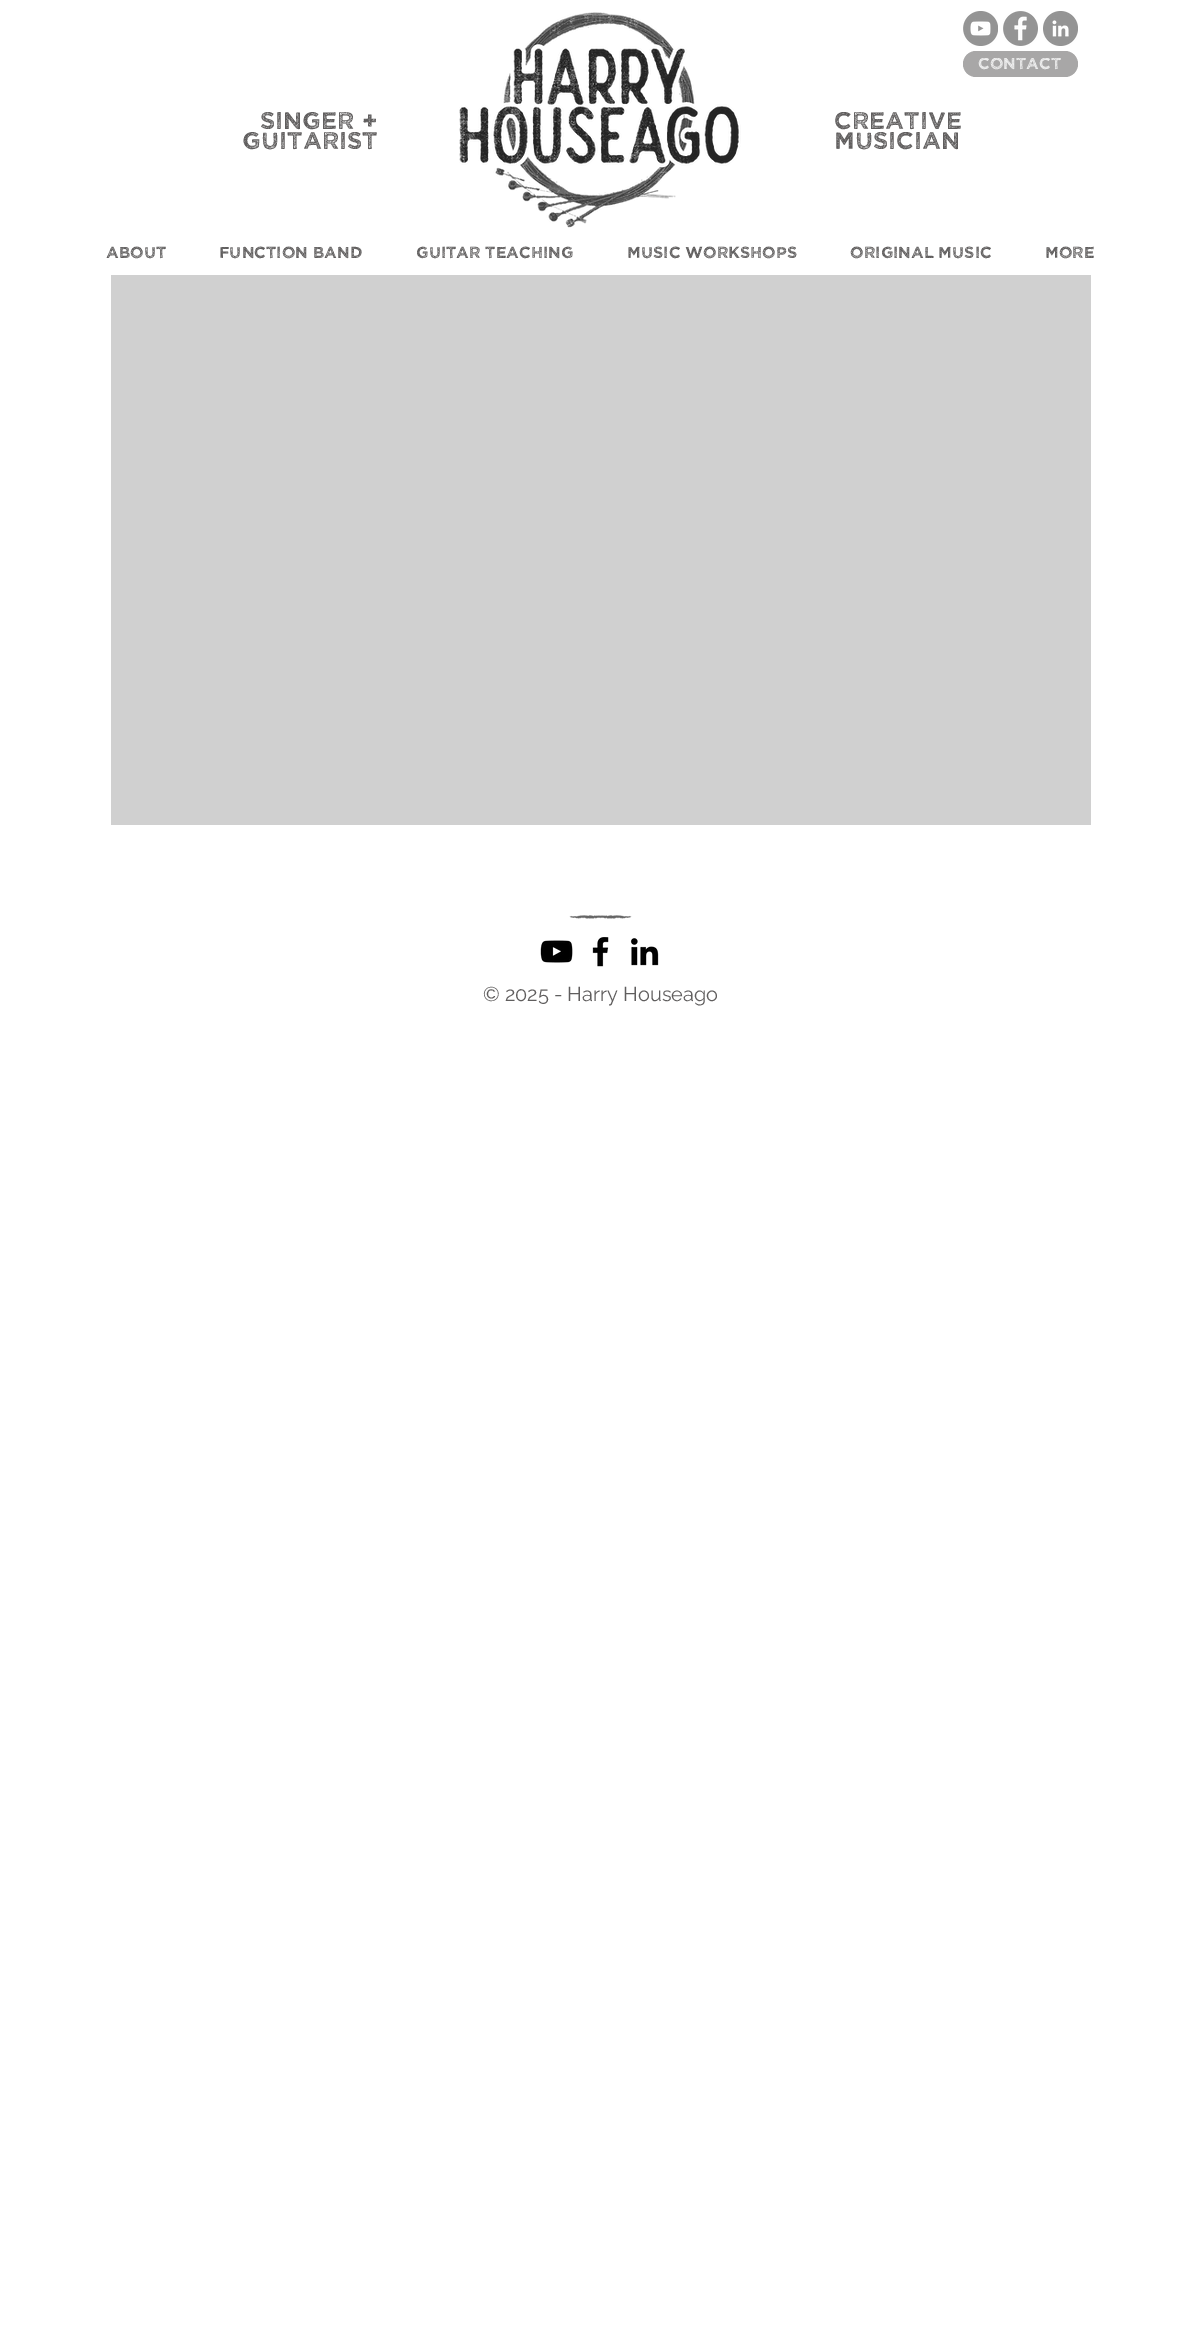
%!PS-Adobe-3.0
%%BoundingBox: 0 0 1201 2351
%%LanguageLevel: 3
%%Pages: 1
%%EndComments
%%BeginProlog
/setink { 3 { 255 div 3 1 roll } repeat setrgbcolor } def
/usefont { [ exch dup neg 0 0 3 -1 roll 0 0 ] selectfont } def
/drawtext { setink usefont moveto show } def
/fillbox { setink rectfill } def
/rrect { 5 dict begin { /r /h /w /y /x } { exch def } forall
  x r add y moveto x w add y 2 copy h add r arct x w add y h add x 1 index r arct
  x y h add x y r arct x y 2 copy exch w add exch r arct closepath end } def
/drawimage { 5 dict begin { /h /w /y /x /name } { exch def } forall
  gsave x y translate w h scale
  w h 8 [w 0 0 h 0 0] name (r) file false 3 colorimage grestore end } def
%%EndProlog
%%BeginSetup
<< /PageSize [1201 2351] >> setpagedevice
%%EndSetup
%%Page: 1 1
0 2351 translate 1 -1 scale
4 setmiterlimit
0 0 1201 2351 255 255 255 fillbox
(assets/img1.rgb) 459 12 282 216 drawimage
(assets/img2.rgb) 963 11 35 35 drawimage
(assets/img3.rgb) 1003 11 35 35 drawimage
(assets/img4.rgb) 1043 11 35 35 drawimage
168 167 167 setink
963 51 115 26 13 rrect fill
gsave
978 58 84 13 rectclip
(CONTACT) 978 69 /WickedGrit-Bold 16 239 239 239 drawtext
grestore
(Singer +) 260 129 /WickedGrit-Bold 24 96 94 94 drawtext
(Guitarist) 242 149 /WickedGrit-Bold 24 96 94 94 drawtext
(Creative) 834 129 /WickedGrit-Bold 24 96 94 94 drawtext
(musician) 834 149 /WickedGrit-Bold 24 96 94 94 drawtext
(ABOUT) 106 258 /WickedGrit-Bold 16 96 94 94 drawtext
(FUNCTION BAND) 219 258 /WickedGrit-Bold 16 96 94 94 drawtext
(GUITAR TEACHING) 416 258 /WickedGrit-Bold 16 96 94 94 drawtext
(MUSIC WORKSHOPS) 627 258 /WickedGrit-Bold 16 96 94 94 drawtext
(ORIGINAL MUSIC) 850 258 /WickedGrit-Bold 16 96 94 94 drawtext
(More) 1045 258 /WickedGrit-Bold 16 96 94 94 drawtext
111 275 980 550 208 208 208 fillbox
(assets/img5.rgb) 569 915 63 4 drawimage
(assets/img6.rgb) 540 940 33 23 drawimage
(assets/img7.rgb) 592 937 17 30 drawimage
(assets/img8.rgb) 630 938 29 28 drawimage
(© 2025 - Harry Houseago) 483 1001 /Raleway-Regular 20 96 94 94 drawtext
showpage
%%EOF
